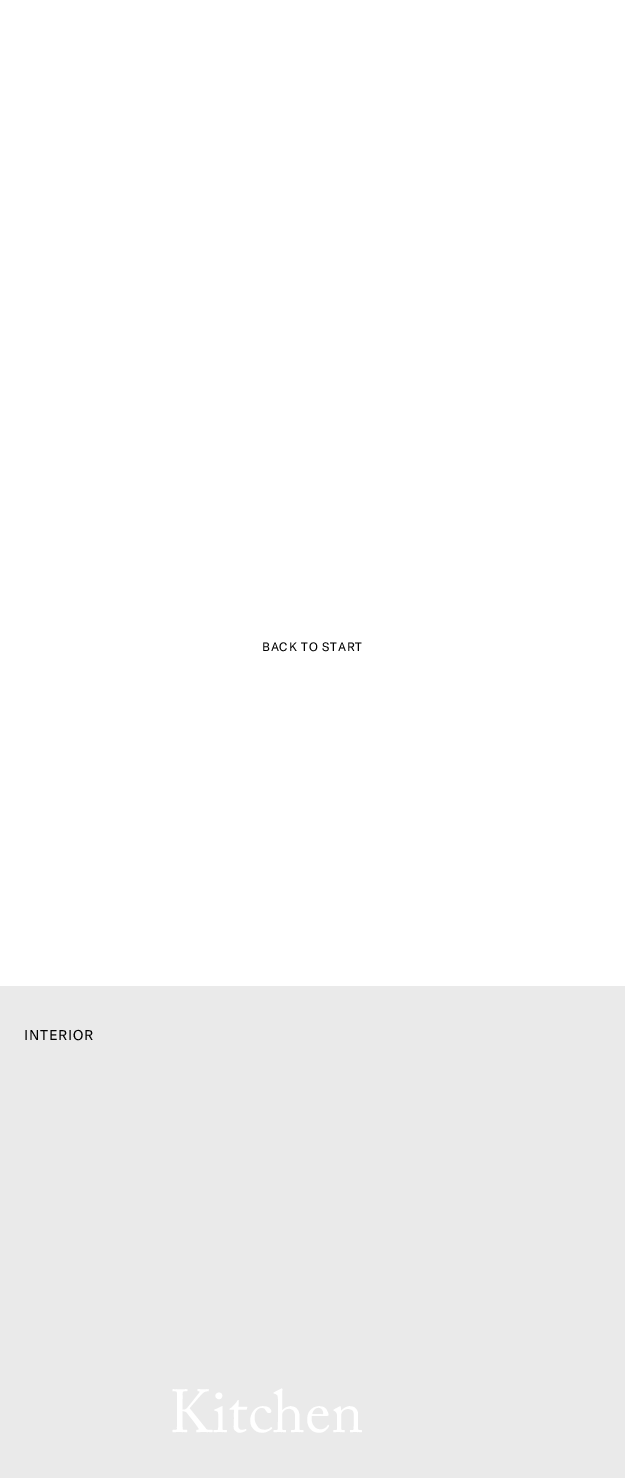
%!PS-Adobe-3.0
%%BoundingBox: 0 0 625 1478
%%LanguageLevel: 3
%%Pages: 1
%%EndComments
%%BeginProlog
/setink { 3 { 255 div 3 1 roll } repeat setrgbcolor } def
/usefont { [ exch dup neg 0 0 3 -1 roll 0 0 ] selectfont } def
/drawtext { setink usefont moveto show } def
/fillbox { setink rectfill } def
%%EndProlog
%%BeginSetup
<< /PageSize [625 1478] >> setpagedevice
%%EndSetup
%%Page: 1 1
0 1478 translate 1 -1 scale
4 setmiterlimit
0 0 625 1478 255 255 255 fillbox
/GTAmerica-Regular 12 usefont
0 0 0 setink
262 651 moveto 0.75 0 (BACK TO START) ashow
0 986 625 492 234 234 234 fillbox
/GTAmerica-Regular 14 usefont
0 0 0 setink
24 1040 moveto 0.75 0 (INTERIOR) ashow
(Kitchen) 169 1432 /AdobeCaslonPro-Regular 60.5 255 255 255 drawtext
showpage
%%EOF
